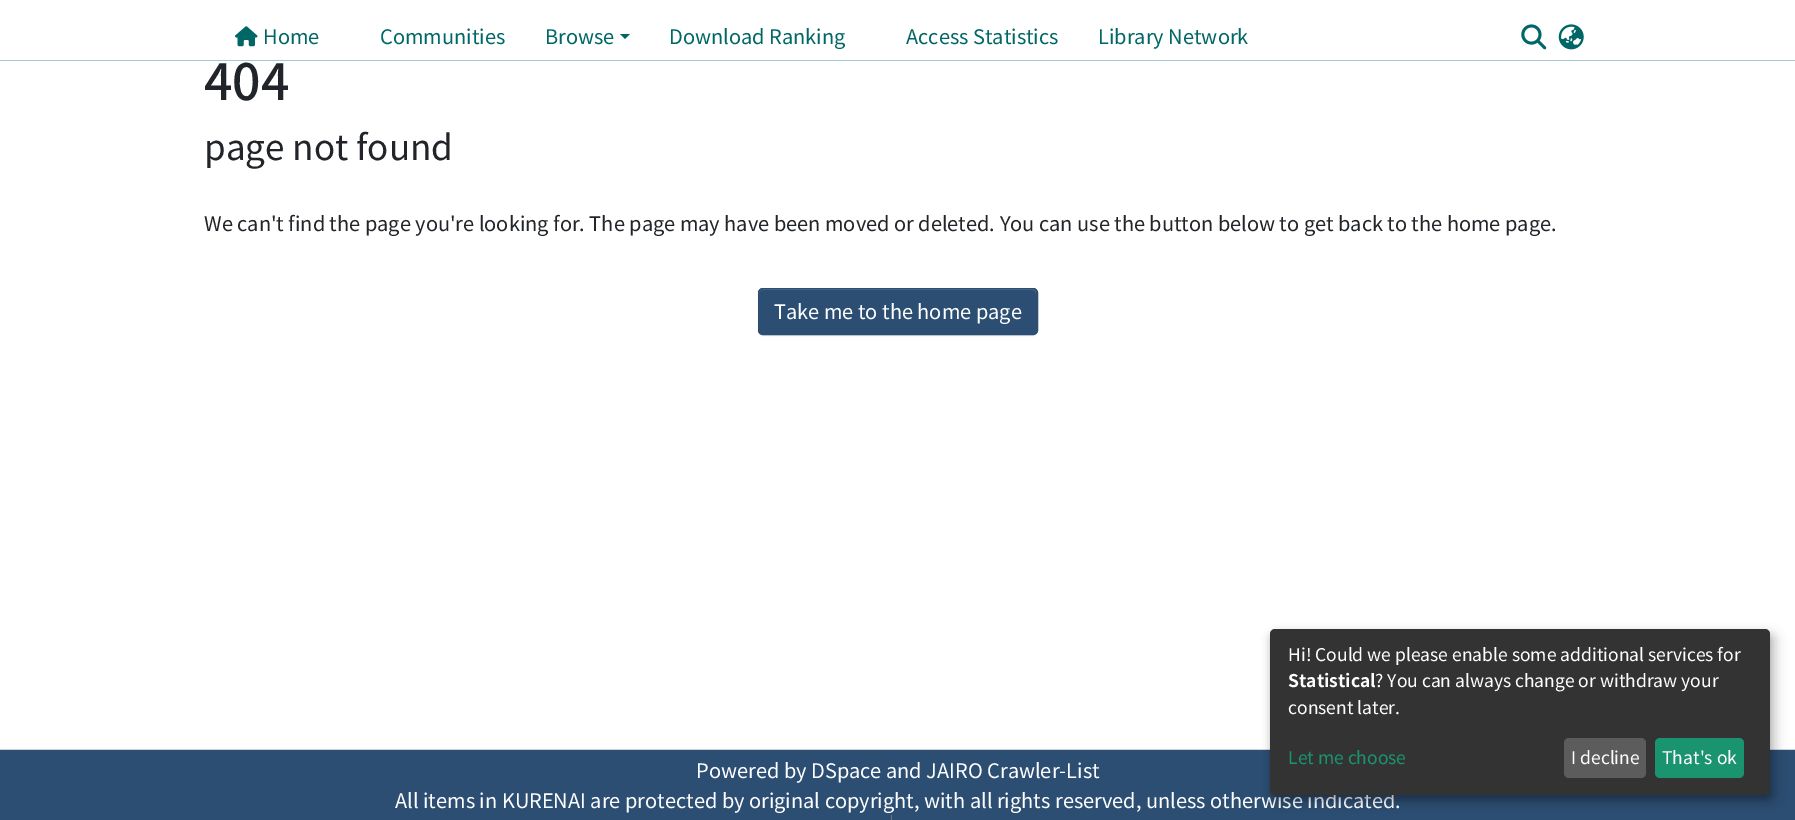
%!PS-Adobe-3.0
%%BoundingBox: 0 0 1795 820
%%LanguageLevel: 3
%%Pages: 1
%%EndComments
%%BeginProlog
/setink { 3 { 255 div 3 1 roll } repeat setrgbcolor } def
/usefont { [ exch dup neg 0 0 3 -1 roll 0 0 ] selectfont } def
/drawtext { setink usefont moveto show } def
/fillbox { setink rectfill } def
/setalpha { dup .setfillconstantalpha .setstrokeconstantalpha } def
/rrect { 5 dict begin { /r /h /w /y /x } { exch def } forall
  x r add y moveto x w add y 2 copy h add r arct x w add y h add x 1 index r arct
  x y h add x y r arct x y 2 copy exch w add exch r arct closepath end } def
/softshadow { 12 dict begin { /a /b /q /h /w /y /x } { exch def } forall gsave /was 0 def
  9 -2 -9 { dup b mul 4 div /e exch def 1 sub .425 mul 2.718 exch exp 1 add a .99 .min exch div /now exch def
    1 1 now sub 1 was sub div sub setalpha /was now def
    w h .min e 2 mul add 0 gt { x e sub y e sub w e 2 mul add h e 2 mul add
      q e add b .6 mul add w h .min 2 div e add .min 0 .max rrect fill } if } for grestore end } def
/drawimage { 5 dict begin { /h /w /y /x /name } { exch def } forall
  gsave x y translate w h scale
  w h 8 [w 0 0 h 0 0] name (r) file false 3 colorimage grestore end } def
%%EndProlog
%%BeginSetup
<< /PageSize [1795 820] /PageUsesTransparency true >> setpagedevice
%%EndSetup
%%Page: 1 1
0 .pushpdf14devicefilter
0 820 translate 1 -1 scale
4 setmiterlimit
0 0 1795 820 255 255 255 fillbox
0 60 1795 1 166 200 214 fillbox
(assets/img1.rgb) 235 26 23 21 drawimage
(Home) 263 44 /NotoSansJP-Regular 20 0 102 102 drawtext
(Communities) 380 44 /NotoSansJP-Regular 20 0 102 102 drawtext
(Browse) 545 44 /NotoSansJP-Regular 20 0 102 102 drawtext
620 34 moveto 630 34 lineto 625 39 lineto closepath fill
(Download Ranking) 669 44 /NotoSansJP-Regular 20 0 102 102 drawtext
(Access Statistics) 906 44 /NotoSansJP-Regular 20 0 102 102 drawtext
(Library Network) 1098 44 /NotoSansJP-Regular 20 0 102 102 drawtext
(assets/img2.rgb) 1521 24 26 26 drawimage
(assets/img3.rgb) 1558 24 26 26 drawimage
(404) 204 100 /NotoSansJP-Medium 50 33 37 41 drawtext
(page not found) 204 160 /NotoSansJP-Regular 35 33 37 41 drawtext
(We can't find the page you're looking for. The page may have been moved or deleted. You can use the button below to get back to the home page.) 204 231 /NotoSansJP-Regular 20 33 37 41 drawtext
0 0 0 setink
758 289 280 47 5 0.5 0.07 softshadow
43 78 114 setink
758 288 280 47 5 rrect fill
75 105 135 setink
762 290 moveto 1032 290 lineto 1035 290 1036 292 1036 294 curveto 1036 291 1035 289 1032 289 curveto 763 289 lineto 760 289 759 291 759 294 curveto 759 292 760 290 762 290 curveto closepath fill
43 78 114 setink
758.5 288.5 279 46 4.5 rrect stroke
(Take me to the home page) 774 319 /NotoSansJP-Regular 20 255 255 255 drawtext
0 750 1795 70 43 78 114 fillbox
0 749 1795 1 206 212 218 fillbox
(Powered by DSpace and JAIRO Crawler-List) 696 778 /NotoSansJP-Regular 20 255 255 255 drawtext
(All items in KURENAI are protected by original copyright, with all rights reserved, unless otherwise indicated.) 395 808 /NotoSansJP-Regular 20 255 255 255 drawtext
891 815 1 5 108 117 125 fillbox
0 0 0 setink
1276 635 500 166 5 6 0.19 softshadow
1270 634 500 166 5 4 0.2 softshadow
51 51 51 setink
1270 629 500 166 5 rrect fill
(Hi! Could we please enable some additional services for) 1288 661 /NotoSansJP-Regular 17.5 255 255 255 drawtext
(Statistical) 1288 687 /NotoSansJP-Bold 17.5 255 255 255 drawtext
(? You can always change or withdraw your) 1375 687 /NotoSansJP-Regular 17.5 255 255 255 drawtext
(consent later.) 1288 714 /NotoSansJP-Regular 17.5 255 255 255 drawtext
(Let me choose) 1288 764 /NotoSansJP-Regular 17.5 26 147 111 drawtext
92 92 92 setink
1564 738 82 40 5 rrect fill
(I decline) 1571 764 /NotoSansJP-Regular 17.5 255 255 255 drawtext
26 147 111 setink
1655 738 89 40 5 rrect fill
(That's ok) 1662 764 /NotoSansJP-Regular 17.5 255 255 255 drawtext
.poppdf14devicefilter showpage
%%EOF
